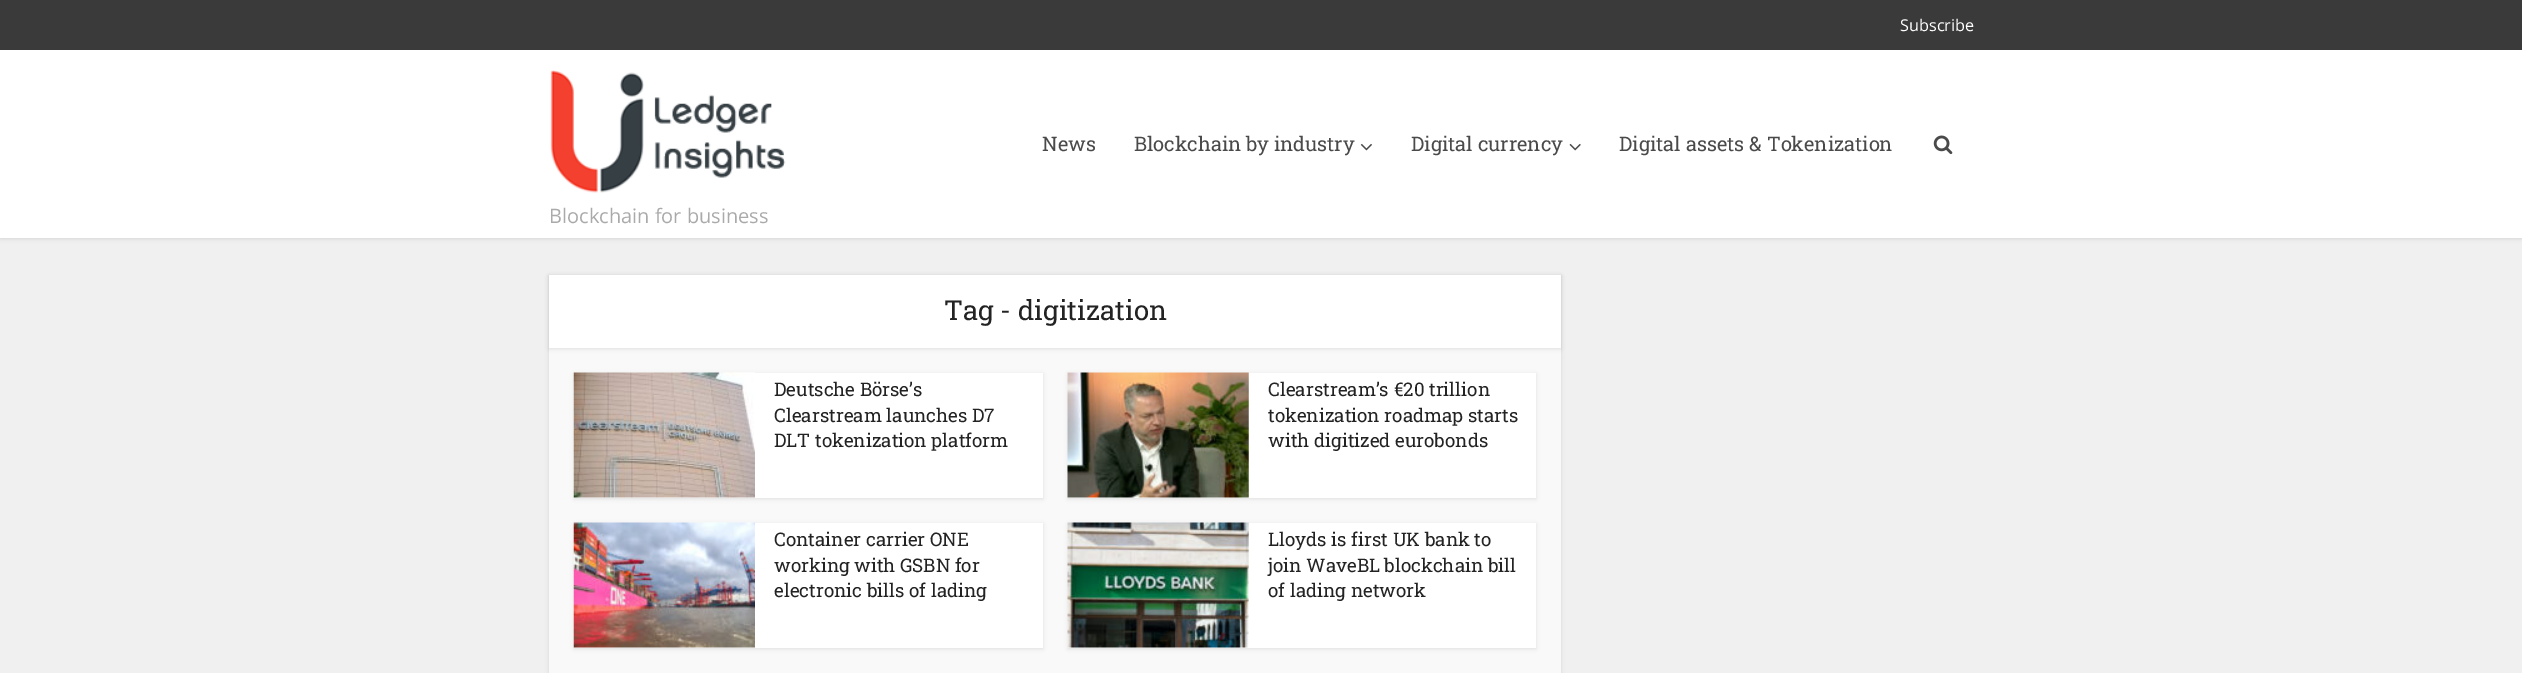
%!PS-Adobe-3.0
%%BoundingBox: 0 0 2522 673
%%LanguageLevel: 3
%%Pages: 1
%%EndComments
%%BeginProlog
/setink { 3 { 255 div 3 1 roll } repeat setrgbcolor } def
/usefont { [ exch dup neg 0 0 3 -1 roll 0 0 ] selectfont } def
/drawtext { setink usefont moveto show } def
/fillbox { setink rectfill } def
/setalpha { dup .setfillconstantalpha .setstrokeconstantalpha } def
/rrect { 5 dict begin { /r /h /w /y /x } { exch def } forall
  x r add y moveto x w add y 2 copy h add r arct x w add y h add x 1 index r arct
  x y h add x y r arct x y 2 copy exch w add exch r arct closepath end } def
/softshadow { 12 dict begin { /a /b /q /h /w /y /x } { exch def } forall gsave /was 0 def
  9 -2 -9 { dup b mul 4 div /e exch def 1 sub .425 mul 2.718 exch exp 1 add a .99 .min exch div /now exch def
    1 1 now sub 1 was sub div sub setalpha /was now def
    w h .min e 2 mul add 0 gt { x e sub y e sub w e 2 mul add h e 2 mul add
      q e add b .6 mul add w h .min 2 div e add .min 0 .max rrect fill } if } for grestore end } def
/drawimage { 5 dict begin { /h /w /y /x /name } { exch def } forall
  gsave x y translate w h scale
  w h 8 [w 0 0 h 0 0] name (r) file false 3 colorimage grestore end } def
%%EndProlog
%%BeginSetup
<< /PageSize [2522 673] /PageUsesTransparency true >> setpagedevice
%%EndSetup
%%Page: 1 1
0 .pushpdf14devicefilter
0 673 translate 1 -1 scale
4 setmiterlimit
0 0 2522 673 240 240 240 fillbox
0 0 0 setink
0 1 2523 238 0 2 0.1 softshadow
0 50 2522 188 255 255 255 fillbox
0 0 2522 50 58 58 58 fillbox
(Subscribe) 1900 31 /OpenSans-Regular 16.25 255 255 255 drawtext
(News) 1042 151 /RobotoSlab-Regular 20 74 74 74 drawtext
(Blockchain by industry) 1134 151 /RobotoSlab-Regular 20 74 74 74 drawtext
(assets/img1.rgb) 1360 143 12 8 drawimage
(Digital currency) 1411 151 /RobotoSlab-Regular 20 74 74 74 drawtext
(assets/img2.rgb) 1569 143 12 8 drawimage
(Digital assets & Tokenization) 1619 151 /RobotoSlab-Regular 20 74 74 74 drawtext
(assets/img3.rgb) 1933 135 20 20 drawimage
(assets/img4.rgb) 550 70 236 123 drawimage
(Blockchain for business) 549 223 /OpenSans-Regular 20 170 170 170 drawtext
0 0 0 setink
549 276 1012 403 0 2 0.1 softshadow
549 348 1012 325 249 249 249 fillbox
0 0 0 setink
549 276 1012 73 0 2 0.1 softshadow
549 275 1012 73 255 255 255 fillbox
(Tag - digitization) 944 320 /RobotoSlab-Regular 27.5 35 35 35 drawtext
0 0 0 setink
574 374 469 125 0 2 0.1 softshadow
574 373 469 125 255 255 255 fillbox
(assets/img5.rgb) 573 372 182 126 drawimage
(Deutsche Börse’s) 774 396 /RobotoSlab-Regular 18.75 35 35 35 drawtext
(Clearstream launches D7) 774 422 /RobotoSlab-Regular 18.75 35 35 35 drawtext
(DLT tokenization platform) 774 447 /RobotoSlab-Regular 18.75 35 35 35 drawtext
0 0 0 setink
1068 374 468 125 0 2 0.1 softshadow
1068 373 468 125 255 255 255 fillbox
(assets/img6.rgb) 1067 372 182 126 drawimage
(Clearstream’s €20 trillion) 1268 396 /RobotoSlab-Regular 18.75 35 35 35 drawtext
(tokenization roadmap starts) 1268 422 /RobotoSlab-Regular 18.75 35 35 35 drawtext
(with digitized eurobonds) 1268 447 /RobotoSlab-Regular 18.75 35 35 35 drawtext
0 0 0 setink
574 524 469 125 0 2 0.1 softshadow
574 523 469 125 255 255 255 fillbox
(assets/img7.rgb) 573 522 182 126 drawimage
(Container carrier ONE) 774 546 /RobotoSlab-Regular 18.75 35 35 35 drawtext
(working with GSBN for) 774 572 /RobotoSlab-Regular 18.75 35 35 35 drawtext
(electronic bills of lading) 774 597 /RobotoSlab-Regular 18.75 35 35 35 drawtext
0 0 0 setink
1068 524 468 125 0 2 0.1 softshadow
1068 523 468 125 255 255 255 fillbox
(assets/img8.rgb) 1067 522 182 126 drawimage
(Lloyds is first UK bank to) 1268 546 /RobotoSlab-Regular 18.75 35 35 35 drawtext
(join WaveBL blockchain bill) 1268 572 /RobotoSlab-Regular 18.75 35 35 35 drawtext
(of lading network) 1268 597 /RobotoSlab-Regular 18.75 35 35 35 drawtext
.poppdf14devicefilter showpage
%%EOF
